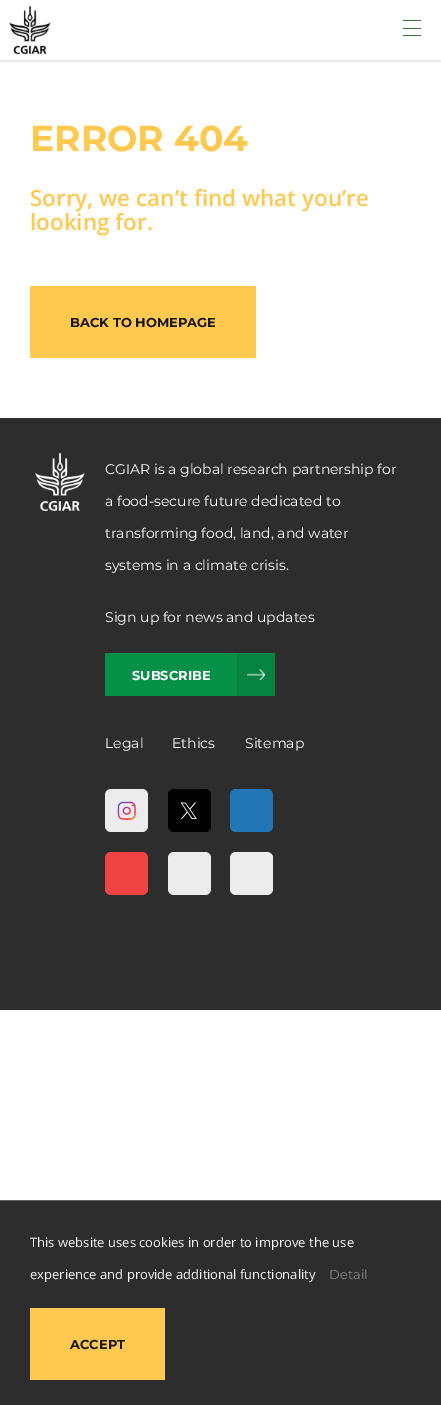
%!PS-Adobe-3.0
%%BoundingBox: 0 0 441 1405
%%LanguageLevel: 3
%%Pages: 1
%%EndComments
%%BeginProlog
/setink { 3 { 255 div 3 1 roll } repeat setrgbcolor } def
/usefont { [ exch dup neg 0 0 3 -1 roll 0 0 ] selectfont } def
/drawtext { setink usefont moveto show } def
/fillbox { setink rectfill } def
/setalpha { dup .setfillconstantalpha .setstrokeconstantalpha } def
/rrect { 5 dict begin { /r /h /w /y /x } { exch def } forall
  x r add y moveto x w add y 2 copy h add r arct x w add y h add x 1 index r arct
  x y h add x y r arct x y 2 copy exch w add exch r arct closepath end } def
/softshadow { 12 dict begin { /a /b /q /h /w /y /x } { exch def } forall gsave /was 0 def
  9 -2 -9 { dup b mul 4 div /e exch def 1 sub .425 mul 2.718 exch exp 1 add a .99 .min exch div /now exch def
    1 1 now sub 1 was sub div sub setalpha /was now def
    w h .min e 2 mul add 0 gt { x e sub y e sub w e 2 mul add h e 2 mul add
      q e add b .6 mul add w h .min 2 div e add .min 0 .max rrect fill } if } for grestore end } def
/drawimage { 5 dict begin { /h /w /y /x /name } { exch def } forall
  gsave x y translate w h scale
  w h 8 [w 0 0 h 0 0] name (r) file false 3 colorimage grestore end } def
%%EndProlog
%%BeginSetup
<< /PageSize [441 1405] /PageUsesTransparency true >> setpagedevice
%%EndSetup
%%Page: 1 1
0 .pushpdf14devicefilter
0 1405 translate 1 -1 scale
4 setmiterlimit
0 0 441 1405 255 255 255 fillbox
gsave
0 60 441 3 rectclip
0 0 0 setink
0 2 441 60 0 1 0.1 softshadow
grestore
(assets/img1.rgb) 9 5 42 50 drawimage
403 20 18 1 46 118 54 fillbox
403 28 18 1 46 118 54 fillbox
403 35 18 1 46 118 54 fillbox
(ERROR 404) 30 151 /Montserrat-Bold 36 255 200 79 drawtext
(Sorry, we can’t find what you’re) 30 206 /OpenSans-SemiBold 22.4 255 200 79 drawtext
(looking for.) 30 230 /OpenSans-SemiBold 22.4 255 200 79 drawtext
30 286 226 72 255 200 79 fillbox
(BACK TO HOMEPAGE) 70 327 /Montserrat-Bold 13 23 23 23 drawtext
0 418 441 592 45 45 45 fillbox
(assets/img2.rgb) 35 453 50 58 drawimage
(CGIAR is a global research partnership for) 105 474 /Montserrat-Regular 14 255 255 255 drawtext
(a food-secure future dedicated to) 105 506 /Montserrat-Regular 14 255 255 255 drawtext
(transforming food, land, and water) 105 538 /Montserrat-Regular 14 255 255 255 drawtext
(systems in a climate crisis.) 105 570 /Montserrat-Regular 14 255 255 255 drawtext
(Sign up for news and updates) 105 622 /Montserrat-Regular 14 255 255 255 drawtext
105 653 132 43 7 144 72 fillbox
(SUBSCRIBE) 132 680 /Montserrat-Bold 13 255 255 255 drawtext
237 653 38 43 6 130 65 fillbox
(assets/img3.rgb) 247 669 18 11 drawimage
(Legal) 105 748 /Montserrat-Regular 14 255 255 255 drawtext
(Ethics) 172 748 /Montserrat-Regular 14 255 255 255 drawtext
(Sitemap) 245 748 /Montserrat-Regular 14 255 255 255 drawtext
236 236 236 setink
105 789 43 43 6 rrect fill
(assets/img4.rgb) 117 801 19 19 drawimage
0 0 0 setink
168 789 43 43 6 rrect fill
(assets/img5.rgb) 180 802 17 17 drawimage
35 118 181 setink
230 789 43 43 6 rrect fill
240 68 68 setink
105 852 43 43 6 rrect fill
236 236 236 setink
168 852 43 43 6 rrect fill
230 852 43 43 6 rrect fill
0 1201 441 204 45 45 45 fillbox
0 1200 441 1 99 99 99 fillbox
(This website uses cookies in order to improve the use) 30 1247 /OpenSans-Regular 13 245 246 246 drawtext
(experience and provide additional functionality) 30 1279 /OpenSans-Regular 13 245 246 246 drawtext
(Detail) 329 1279 /Montserrat-Regular 13 135 135 135 drawtext
30 1308 135 72 255 200 79 fillbox
(ACCEPT) 70 1349 /Montserrat-Bold 13 23 23 23 drawtext
.poppdf14devicefilter showpage
%%EOF
